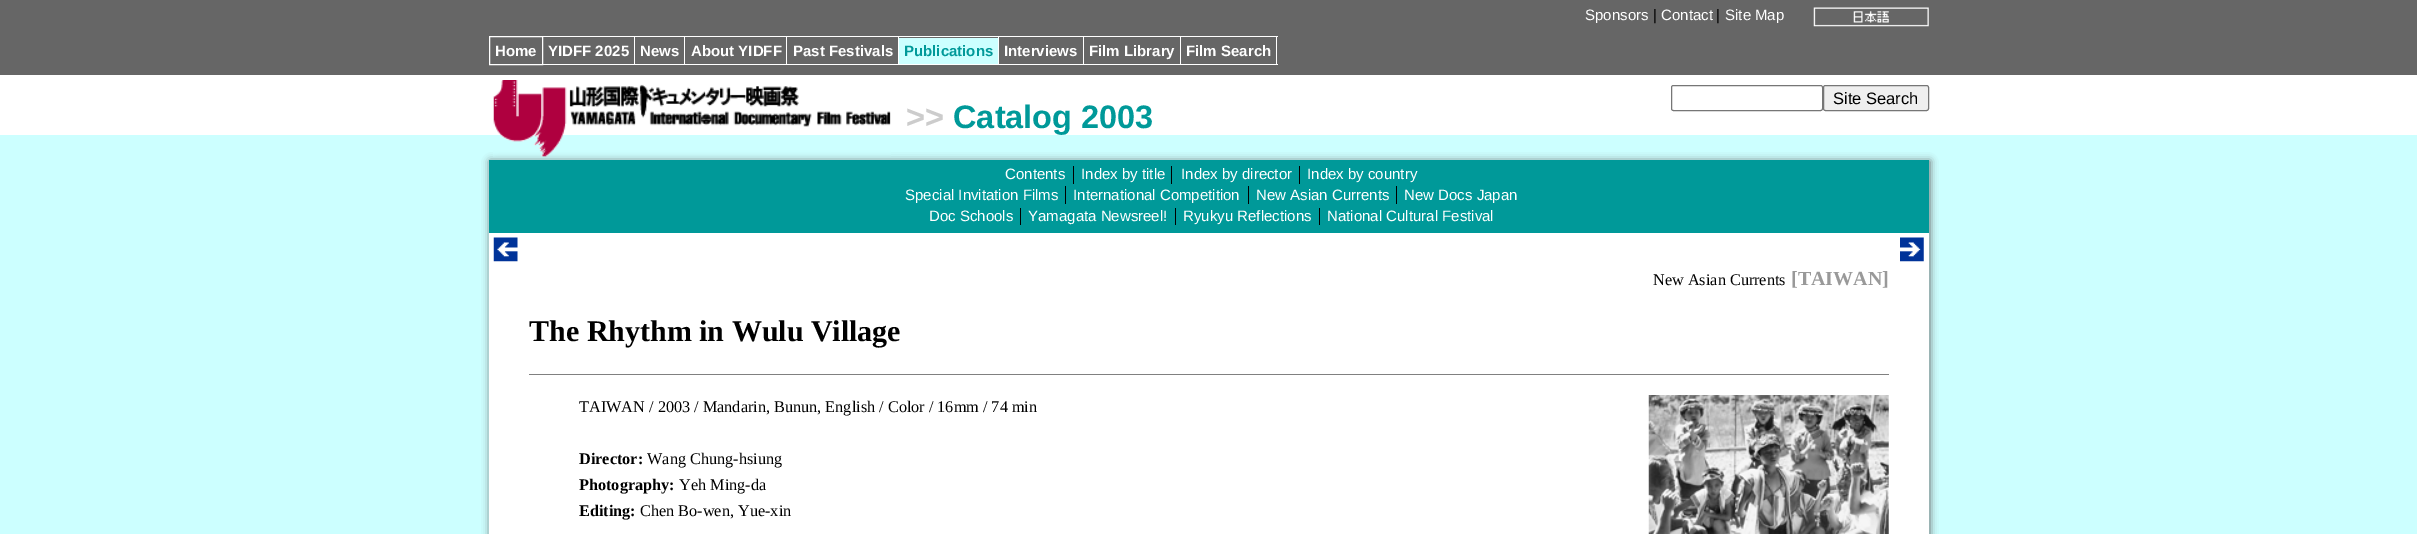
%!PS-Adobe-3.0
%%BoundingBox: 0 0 2417 534
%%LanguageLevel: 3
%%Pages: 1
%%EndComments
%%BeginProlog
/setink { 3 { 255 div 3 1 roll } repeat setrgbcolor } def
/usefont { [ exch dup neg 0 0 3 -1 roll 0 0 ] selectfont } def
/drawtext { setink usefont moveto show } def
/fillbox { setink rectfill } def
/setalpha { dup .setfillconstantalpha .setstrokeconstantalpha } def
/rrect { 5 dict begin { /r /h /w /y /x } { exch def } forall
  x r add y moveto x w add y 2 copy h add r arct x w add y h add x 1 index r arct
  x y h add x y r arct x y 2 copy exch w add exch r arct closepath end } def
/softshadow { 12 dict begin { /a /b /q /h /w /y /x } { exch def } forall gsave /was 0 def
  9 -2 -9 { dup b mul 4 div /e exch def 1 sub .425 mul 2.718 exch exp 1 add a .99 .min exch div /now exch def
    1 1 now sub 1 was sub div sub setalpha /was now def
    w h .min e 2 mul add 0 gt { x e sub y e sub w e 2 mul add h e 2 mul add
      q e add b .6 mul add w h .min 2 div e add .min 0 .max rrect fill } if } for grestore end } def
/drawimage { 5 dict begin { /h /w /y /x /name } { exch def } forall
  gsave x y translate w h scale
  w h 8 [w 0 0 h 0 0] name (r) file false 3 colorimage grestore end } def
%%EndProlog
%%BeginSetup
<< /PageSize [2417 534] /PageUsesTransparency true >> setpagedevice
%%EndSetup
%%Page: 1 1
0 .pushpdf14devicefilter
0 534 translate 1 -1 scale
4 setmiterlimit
0 0 2417 534 204 255 255 fillbox
0 0 2417 75 102 102 102 fillbox
(Sponsors) 1585 20 /LiberationSans-Regular 15 255 255 255 drawtext
(|) 1653 20 /LiberationSans-Regular 15 0 0 0 drawtext
(Contact) 1661 20 /LiberationSans-Regular 15 255 255 255 drawtext
(|) 1716 20 /LiberationSans-Regular 15 0 0 0 drawtext
(Site Map) 1725 20 /LiberationSans-Regular 15 255 255 255 drawtext
(assets/img1.rgb) 1813 7 116 20 drawimage
489.5 36.5 53 28 rectstroke
(Home) 495 56 /LiberationSans-Bold 15 255 255 255 drawtext
(YIDFF 2025) 548 56 /LiberationSans-Bold 15 255 255 255 drawtext
543 36 735 1 255 255 255 fillbox
634 36 1 29 255 255 255 fillbox
543 64 92 1 255 255 255 fillbox
(News) 640 56 /LiberationSans-Bold 15 255 255 255 drawtext
684 36 1 29 255 255 255 fillbox
635 64 50 1 255 255 255 fillbox
(About YIDFF) 691 56 /LiberationSans-Bold 15 255 255 255 drawtext
786 36 1 29 255 255 255 fillbox
685 64 103 1 255 255 255 fillbox
(Past Festivals) 793 56 /LiberationSans-Bold 15 255 255 255 drawtext
898 36 1 29 255 255 255 fillbox
788 64 111 1 255 255 255 fillbox
899 38 99 26 204 255 255 fillbox
(Publications) 904 56 /LiberationSans-Bold 15 0 153 153 drawtext
998 36 1 29 255 255 255 fillbox
899 64 100 1 255 255 255 fillbox
(Interviews) 1004 56 /LiberationSans-Bold 15 255 255 255 drawtext
1083 36 1 29 255 255 255 fillbox
999 64 85 1 255 255 255 fillbox
(Film Library) 1089 56 /LiberationSans-Bold 15 255 255 255 drawtext
1180 36 1 29 255 255 255 fillbox
1084 64 97 1 255 255 255 fillbox
(Film Search) 1186 56 /LiberationSans-Bold 15 255 255 255 drawtext
1276 36 1 29 255 255 255 fillbox
1181 64 97 1 255 255 255 fillbox
0 75 2417 60 255 255 255 fillbox
102 102 102 setink
490 161 1440 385 0 4 1 softshadow
(assets/img2.rgb) 493 80 398 77 drawimage
118 118 118 setink
1671.5 85.5 151 25 2 rrect stroke
239 239 239 setink
1823.5 85.5 105 25 2 rrect gsave fill grestore
118 118 118 setink
stroke
(Site Search) 1833 104 /LiberationSans-Regular 16.5 0 0 0 drawtext
(>>) 906 128 /LiberationSans-Bold 32.5 204 204 204 drawtext
(Catalog 2003) 953 128 /LiberationSans-Bold 32.5 0 153 153 drawtext
489 160 1440 73 0 153 153 fillbox
(Contents) 1005 179 /LiberationSans-Regular 15 255 255 255 drawtext
(Index by title) 1081 179 /LiberationSans-Regular 15 255 255 255 drawtext
1073 166 1 18 0 0 0 fillbox
(Index by director) 1181 179 /LiberationSans-Regular 15 255 255 255 drawtext
1171 166 1 18 0 0 0 fillbox
(Index by country) 1307 179 /LiberationSans-Regular 15 255 255 255 drawtext
1299 166 1 18 0 0 0 fillbox
(Special Invitation Films) 905 200 /LiberationSans-Regular 15 255 255 255 drawtext
(International Competition) 1073 200 /LiberationSans-Regular 15 255 255 255 drawtext
1065 186 1 18 0 0 0 fillbox
(New Asian Currents) 1256 200 /LiberationSans-Regular 15 255 255 255 drawtext
1248 186 1 18 0 0 0 fillbox
(New Docs Japan) 1404 200 /LiberationSans-Regular 15 255 255 255 drawtext
1396 186 1 18 0 0 0 fillbox
(Doc Schools) 929 221 /LiberationSans-Regular 15 255 255 255 drawtext
(Yamagata Newsreel!) 1028 221 /LiberationSans-Regular 15 255 255 255 drawtext
1020 208 1 17 0 0 0 fillbox
(Ryukyu Reflections) 1183 221 /LiberationSans-Regular 15 255 255 255 drawtext
1175 208 1 17 0 0 0 fillbox
(National Cultural Festival) 1327 221 /LiberationSans-Regular 15 255 255 255 drawtext
1319 208 1 17 0 0 0 fillbox
489 233 1440 301 255 255 255 fillbox
(assets/img3.rgb) 493 237 25 25 drawimage
(assets/img4.rgb) 1900 237 24 25 drawimage
(New Asian Currents) 1653 285 /LiberationSerif-Regular 16.25 0 0 0 drawtext
([TAIWAN]) 1791 285 /LiberationSerif-Bold 20 153 153 153 drawtext
(The Rhythm in Wulu Village) 529 341 /LiberationSerif-Bold 30 0 0 0 drawtext
529 374 1360 1 128 128 128 fillbox
(TAIWAN / 2003 / Mandarin, Bunun, English / Color / 16mm / 74 min) 579 412 /LiberationSerif-Regular 16.25 0 0 0 drawtext
(assets/img5.rgb) 1648 395 241 139 drawimage
(Director:) 579 464 /LiberationSerif-Bold 16.25 0 0 0 drawtext
(Wang Chung-hsiung) 647 464 /LiberationSerif-Regular 16.25 0 0 0 drawtext
(Photography:) 579 490 /LiberationSerif-Bold 16.25 0 0 0 drawtext
(Yeh Ming-da) 679 490 /LiberationSerif-Regular 16.25 0 0 0 drawtext
(Editing:) 579 516 /LiberationSerif-Bold 16.25 0 0 0 drawtext
(Chen Bo-wen, Yue-xin) 640 516 /LiberationSerif-Regular 16.25 0 0 0 drawtext
.poppdf14devicefilter showpage
%%EOF
